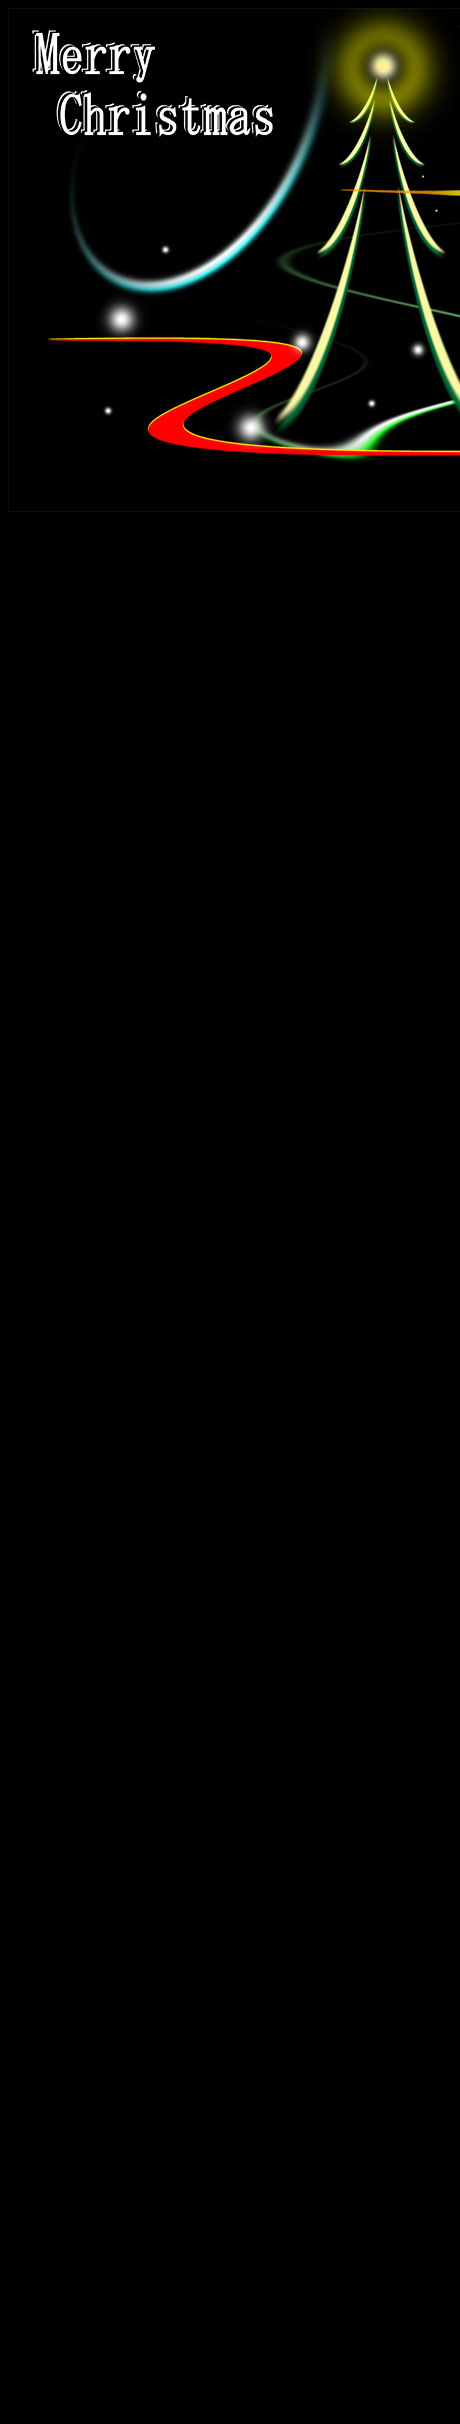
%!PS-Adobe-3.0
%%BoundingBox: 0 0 460 2424
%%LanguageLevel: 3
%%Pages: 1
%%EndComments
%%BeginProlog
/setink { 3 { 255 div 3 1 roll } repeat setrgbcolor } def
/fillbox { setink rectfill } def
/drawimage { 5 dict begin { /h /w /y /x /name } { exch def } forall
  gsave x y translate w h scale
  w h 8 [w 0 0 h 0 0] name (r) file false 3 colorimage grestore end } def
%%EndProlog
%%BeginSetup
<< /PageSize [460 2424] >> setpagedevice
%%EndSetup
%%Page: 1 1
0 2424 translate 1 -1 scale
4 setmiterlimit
0 0 460 2424 0 0 0 fillbox
(assets/img1.rgb) 8 8 452 504 drawimage
showpage
%%EOF
